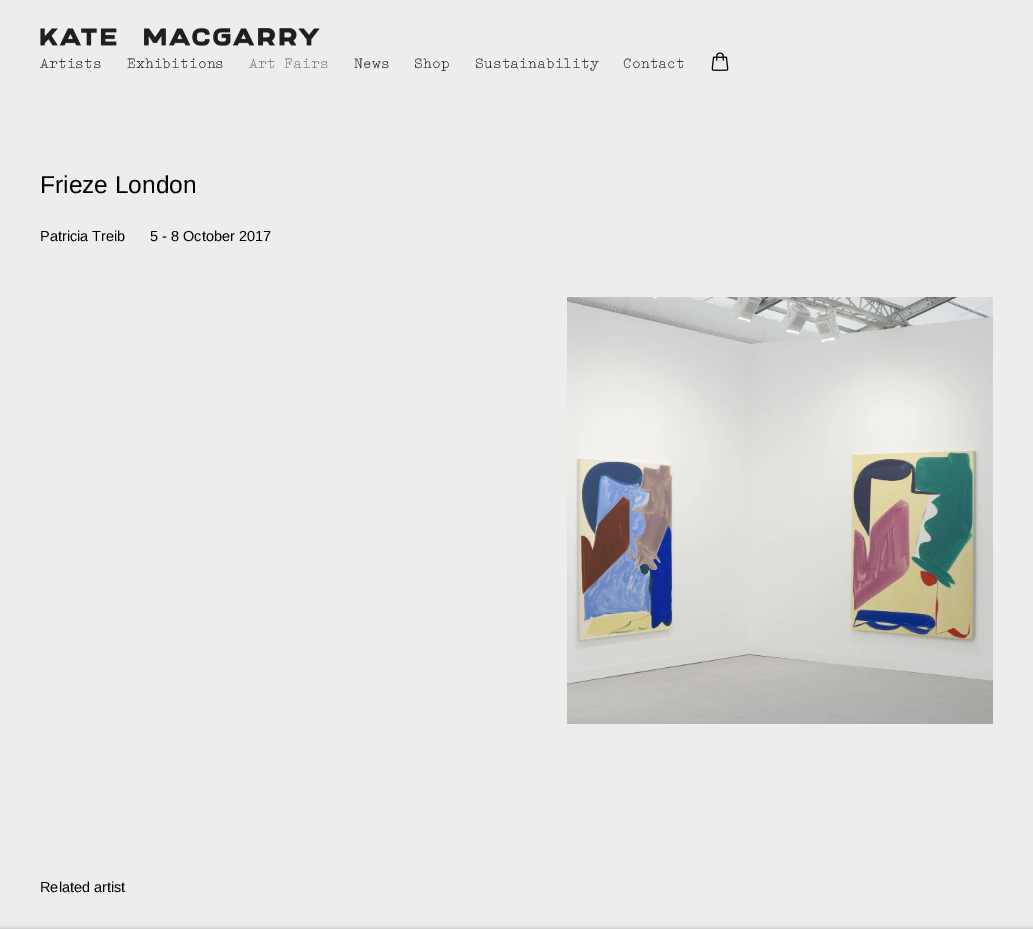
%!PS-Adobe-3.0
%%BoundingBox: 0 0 1033 929
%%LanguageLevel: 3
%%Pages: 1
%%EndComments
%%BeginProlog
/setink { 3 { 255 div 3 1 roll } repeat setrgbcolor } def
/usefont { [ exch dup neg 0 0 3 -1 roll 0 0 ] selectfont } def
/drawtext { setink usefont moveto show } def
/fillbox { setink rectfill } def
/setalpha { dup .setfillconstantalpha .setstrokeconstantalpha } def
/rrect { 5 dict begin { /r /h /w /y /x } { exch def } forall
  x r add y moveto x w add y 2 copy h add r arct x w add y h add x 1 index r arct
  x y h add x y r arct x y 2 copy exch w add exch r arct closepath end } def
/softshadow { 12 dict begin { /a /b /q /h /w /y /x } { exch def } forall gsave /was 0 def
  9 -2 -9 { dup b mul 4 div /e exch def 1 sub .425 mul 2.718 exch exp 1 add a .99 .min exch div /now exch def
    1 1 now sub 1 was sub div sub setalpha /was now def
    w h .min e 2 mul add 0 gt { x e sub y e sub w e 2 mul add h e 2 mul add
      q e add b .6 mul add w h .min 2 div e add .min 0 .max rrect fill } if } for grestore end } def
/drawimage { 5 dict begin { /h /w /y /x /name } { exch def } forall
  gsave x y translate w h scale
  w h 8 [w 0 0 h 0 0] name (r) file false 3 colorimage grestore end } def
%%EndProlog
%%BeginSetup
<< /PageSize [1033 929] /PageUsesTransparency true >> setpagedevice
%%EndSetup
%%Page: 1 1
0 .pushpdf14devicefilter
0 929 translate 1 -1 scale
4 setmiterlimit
0 0 1033 929 237 237 237 fillbox
(assets/img1.rgb) 40 28 280 18 drawimage
(Artists) 40 68 /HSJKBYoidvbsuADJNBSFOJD-Regular 14.5 1 1 1 drawtext
(Exhibitions) 127 68 /HSJKBYoidvbsuADJNBSFOJD-Regular 14.5 1 1 1 drawtext
(Art Fairs) 249 68 /HSJKBYoidvbsuADJNBSFOJD-Regular 14.5 100 100 100 drawtext
(News) 354 68 /HSJKBYoidvbsuADJNBSFOJD-Regular 14.5 1 1 1 drawtext
(Shop) 414 68 /HSJKBYoidvbsuADJNBSFOJD-Regular 14.5 1 1 1 drawtext
(Sustainability) 475 68 /HSJKBYoidvbsuADJNBSFOJD-Regular 14.5 1 1 1 drawtext
(Contact) 623 68 /HSJKBYoidvbsuADJNBSFOJD-Regular 14.5 1 1 1 drawtext
(assets/img2.rgb) 711 52 18 19 drawimage
(Frieze London) 40 193 /LiberationSans-Regular 24.5 1 1 1 drawtext
(Patricia Treib) 40 241 /LiberationSans-Regular 14.5 1 1 1 drawtext
(5 - 8 October 2017) 150 241 /LiberationSans-Regular 14.5 1 1 1 drawtext
(assets/img3.rgb) 567 297 426 427 drawimage
(Related artist) 40 892 /LiberationSans-Regular 14.5 1 1 1 drawtext
0 0 0 setink
0 929 1033 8 0 2.5 0.23 softshadow
.poppdf14devicefilter showpage
%%EOF
